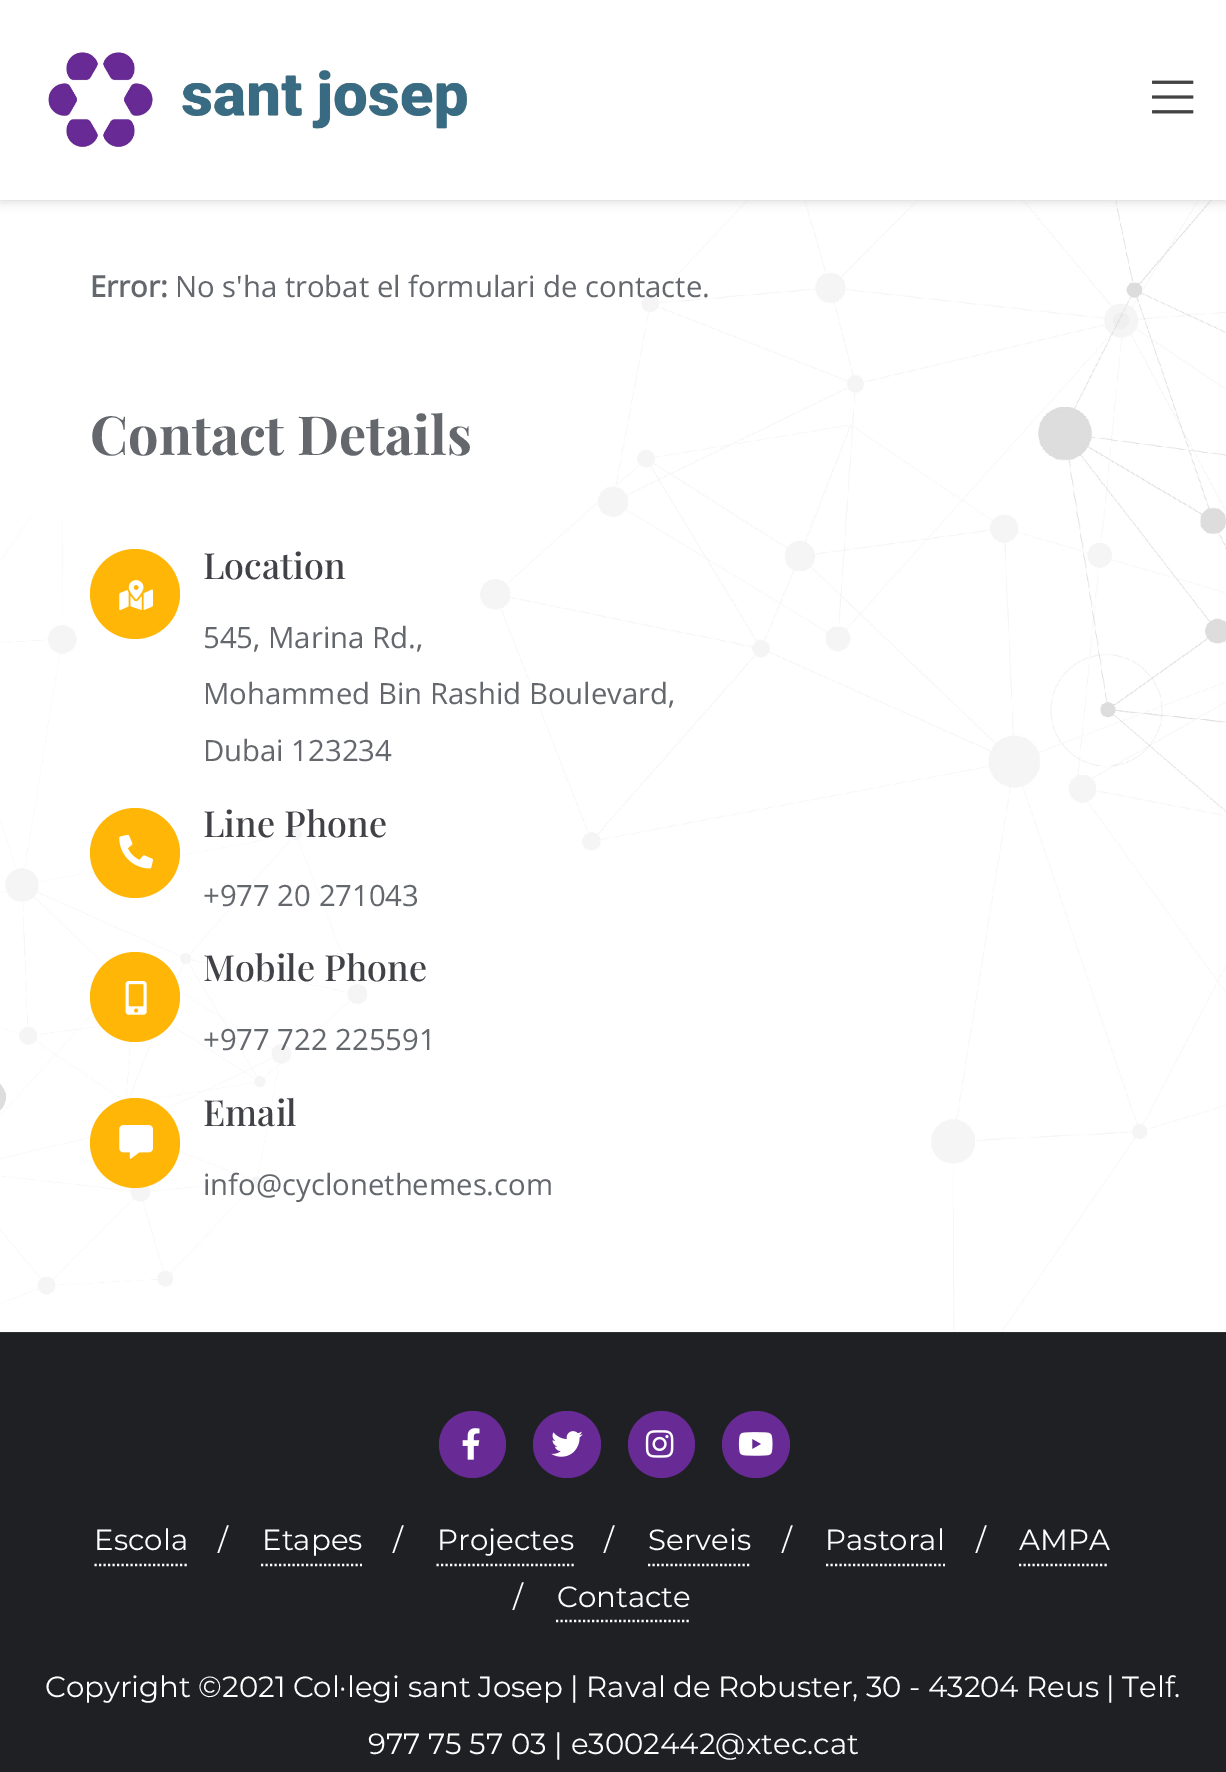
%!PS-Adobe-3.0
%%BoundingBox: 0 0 1226 1772
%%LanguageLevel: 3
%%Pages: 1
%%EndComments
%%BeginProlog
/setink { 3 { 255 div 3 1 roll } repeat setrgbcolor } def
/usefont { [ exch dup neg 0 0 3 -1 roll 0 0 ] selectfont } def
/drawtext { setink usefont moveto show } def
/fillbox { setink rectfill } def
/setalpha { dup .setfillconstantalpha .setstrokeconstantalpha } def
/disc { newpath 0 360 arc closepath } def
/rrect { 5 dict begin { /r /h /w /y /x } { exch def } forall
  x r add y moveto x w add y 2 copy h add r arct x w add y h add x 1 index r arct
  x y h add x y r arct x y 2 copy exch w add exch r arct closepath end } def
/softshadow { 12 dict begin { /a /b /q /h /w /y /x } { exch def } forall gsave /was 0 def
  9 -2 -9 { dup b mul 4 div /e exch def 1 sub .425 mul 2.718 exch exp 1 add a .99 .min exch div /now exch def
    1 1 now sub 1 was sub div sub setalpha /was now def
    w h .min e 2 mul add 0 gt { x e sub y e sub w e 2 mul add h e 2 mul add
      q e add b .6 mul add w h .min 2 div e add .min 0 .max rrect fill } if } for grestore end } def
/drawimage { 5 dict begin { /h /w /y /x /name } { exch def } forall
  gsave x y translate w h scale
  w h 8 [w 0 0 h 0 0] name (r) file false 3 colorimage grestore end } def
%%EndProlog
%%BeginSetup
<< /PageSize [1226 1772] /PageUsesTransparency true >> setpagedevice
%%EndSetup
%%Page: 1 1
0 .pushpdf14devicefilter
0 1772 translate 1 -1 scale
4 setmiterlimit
0 0 1226 1772 255 255 255 fillbox
0 1332 1226 440 31 32 36 fillbox
(assets/img3.rgb) 0 200 1226 1133 drawimage
204 204 204 setink
0 0 1226 200 0 5.5 1 softshadow
0 0 1226 200 255 255 255 fillbox
(assets/img1.rgb) 48 52 420 95 drawimage
(assets/img2.rgb) 1152 80 42 34 drawimage
(Error:) 90 297 /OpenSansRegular-Bold 29.25 100 104 109 drawtext
(No s'ha trobat el formulari de contacte.) 175 297 /OpenSansRegular-Regular 29.25 100 104 109 drawtext
(Contact Details) 90 455 /PlayfairDisplay-Bold 54 100 104 109 drawtext
255 182 6 setink
135 594 45 disc fill
(assets/img4.rgb) 119 580 34 31 drawimage
(Location) 203 579 /PlayfairDisplay-Medium 36 65 66 71 drawtext
(545, Marina Rd.,) 203 648 /OpenSansRegular-Regular 29.25 100 104 109 drawtext
(Mohammed Bin Rashid Boulevard,) 203 704 /OpenSansRegular-Regular 29.25 100 104 109 drawtext
(Dubai 123234) 203 761 /OpenSansRegular-Regular 29.25 100 104 109 drawtext
255 182 6 setink
135 853 45 disc fill
(assets/img5.rgb) 119 835 34 34 drawimage
(Line Phone) 203 837 /PlayfairDisplay-Medium 36 65 66 71 drawtext
(+977 20 271043) 203 906 /OpenSansRegular-Regular 29.25 100 104 109 drawtext
255 182 6 setink
135 997 45 disc fill
(assets/img6.rgb) 125 981 22 34 drawimage
(Mobile Phone) 203 981 /PlayfairDisplay-Medium 36 65 66 71 drawtext
(+977 722 225591) 203 1050 /OpenSansRegular-Regular 29.25 100 104 109 drawtext
255 182 6 setink
135 1143 45 disc fill
(assets/img7.rgb) 119 1125 34 34 drawimage
(Email) 203 1126 /PlayfairDisplay-Medium 36 65 66 71 drawtext
(info@cyclonethemes.com) 203 1195 /OpenSansRegular-Regular 29.25 100 104 109 drawtext
104 42 149 setink
472.5 1444.5 33.5 disc fill
(assets/img8.rgb) 462 1428 18 32 drawimage
533 1411 68 67 33.5 rrect fill
(assets/img9.rgb) 551 1431 32 26 drawimage
661.5 1444.5 33.5 disc fill
(assets/img10.rgb) 645 1430 29 28 drawimage
722 1411 68 67 33.5 rrect fill
(assets/img11.rgb) 738 1432 35 24 drawimage
255 255 255 setink
2.2 setlinewidth
[2.25 2.25] 0 setdash
94.5 1565 moveto 187 1565 lineto stroke
(Escola) 94 1550 /Montserrat-Regular 29.25 255 255 255 drawtext
(/) 218 1550 /Montserrat-Regular 29.25 255 255 255 drawtext
261 1565 moveto 362 1565 lineto stroke
(Etapes) 262 1550 /Montserrat-Regular 29.25 255 255 255 drawtext
(/) 393 1550 /Montserrat-Regular 29.25 255 255 255 drawtext
436.5 1565 moveto 574 1565 lineto stroke
(Projectes) 437 1550 /Montserrat-Regular 29.25 255 255 255 drawtext
(/) 604 1550 /Montserrat-Regular 29.25 255 255 255 drawtext
648 1565 moveto 751.5 1565 lineto stroke
(Serveis) 648 1550 /Montserrat-Regular 29.25 255 255 255 drawtext
(/) 782 1550 /Montserrat-Regular 29.25 255 255 255 drawtext
826 1565 moveto 945 1565 lineto stroke
(Pastoral) 825 1550 /Montserrat-Regular 29.25 255 255 255 drawtext
(/) 976 1550 /Montserrat-Regular 29.25 255 255 255 drawtext
1019 1565 moveto 1109 1565 lineto stroke
(AMPA) 1019 1550 /Montserrat-Regular 29.25 255 255 255 drawtext
(/) 513 1607 /Montserrat-Regular 29.25 255 255 255 drawtext
556 1621 moveto 691 1621 lineto stroke
(Contacte) 557 1607 /Montserrat-Regular 29.25 255 255 255 drawtext
45 1697 moveto -0.3 0 32 (Copyright ©2021 Col·legi sant Josep | Raval de Robuster, 30 - 43204 Reus | Telf.) widthshow
(977 75 57 03 | e3002442@xtec.cat) 368 1754 /Montserrat-Regular 29.25 255 255 255 drawtext
.poppdf14devicefilter showpage
%%EOF
